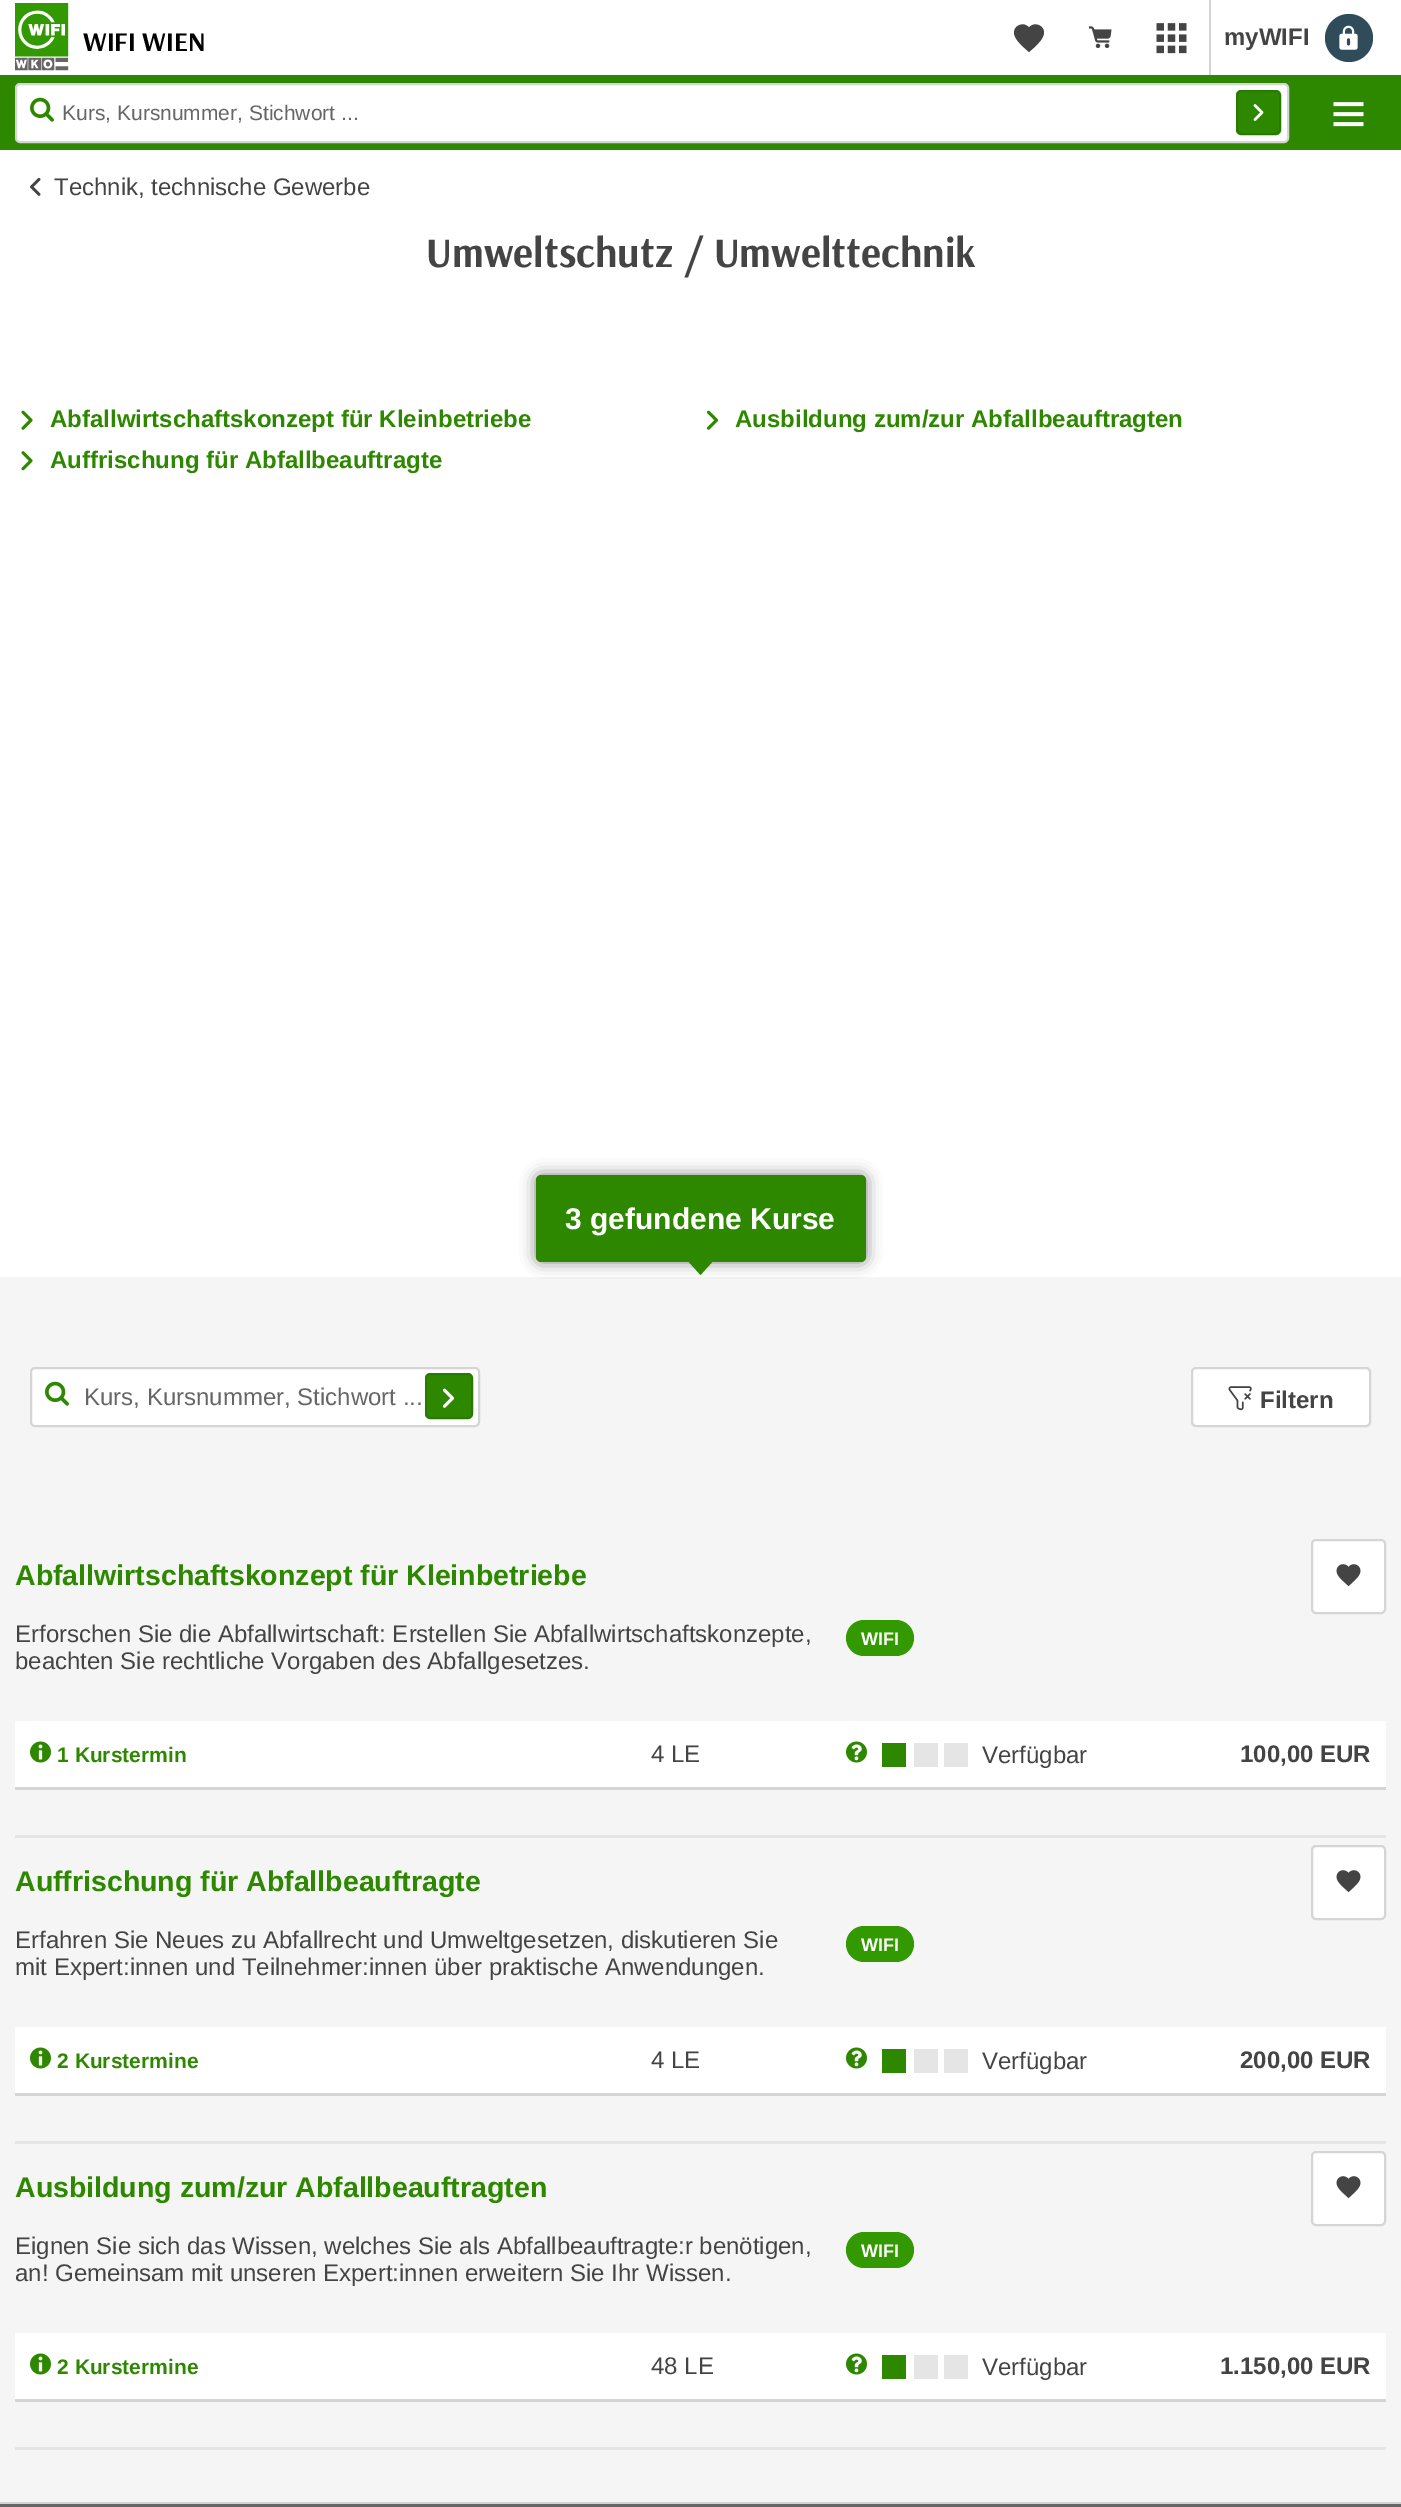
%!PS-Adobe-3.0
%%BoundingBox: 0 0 1401 2507
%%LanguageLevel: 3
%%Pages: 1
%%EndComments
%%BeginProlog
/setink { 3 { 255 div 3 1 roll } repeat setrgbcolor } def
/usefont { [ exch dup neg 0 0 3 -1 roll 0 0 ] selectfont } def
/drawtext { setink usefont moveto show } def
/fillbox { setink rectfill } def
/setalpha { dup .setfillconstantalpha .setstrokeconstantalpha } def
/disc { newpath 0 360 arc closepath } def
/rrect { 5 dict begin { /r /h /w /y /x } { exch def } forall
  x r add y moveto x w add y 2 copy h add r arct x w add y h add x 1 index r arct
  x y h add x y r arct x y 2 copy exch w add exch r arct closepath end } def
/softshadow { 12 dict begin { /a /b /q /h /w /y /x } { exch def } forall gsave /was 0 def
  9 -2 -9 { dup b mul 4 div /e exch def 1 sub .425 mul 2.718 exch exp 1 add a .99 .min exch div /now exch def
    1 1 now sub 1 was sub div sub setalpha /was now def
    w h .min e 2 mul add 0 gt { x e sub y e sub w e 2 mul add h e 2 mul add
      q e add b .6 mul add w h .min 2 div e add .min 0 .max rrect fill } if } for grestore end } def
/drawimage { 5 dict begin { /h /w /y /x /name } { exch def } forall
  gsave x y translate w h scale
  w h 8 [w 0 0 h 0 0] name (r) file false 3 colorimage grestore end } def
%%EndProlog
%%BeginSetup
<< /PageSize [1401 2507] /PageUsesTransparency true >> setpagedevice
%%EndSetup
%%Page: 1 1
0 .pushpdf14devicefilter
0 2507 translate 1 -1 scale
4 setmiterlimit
0 0 1401 2507 255 255 255 fillbox
(assets/img1.rgb) 15 3 54 68 drawimage
(WIFI WIEN) 83 51 /Arsenal-Bold 27 0 0 0 drawtext
68 68 68 setink
1029 52 moveto 1024 47.5 1018 43 1015 36.5 curveto 1010.5 27.5 1022.5 20 1029 27.5 curveto 1035.5 20 1047.5 27.5 1043 36.5 curveto 1040 43 1034 47.5 1029 52 curveto closepath fill
(assets/img2.rgb) 1089 26 23 23 drawimage
(assets/img3.rgb) 1156 23 31 31 drawimage
1209 0 2 75 213 213 213 fillbox
(myWIFI) 1224 45 /LiberationSans-Bold 24 68 68 68 drawtext
48 76 90 setink
1349 38 24 disc fill
(assets/img4.rgb) 1339 25 19 25 drawimage
0 75 1401 75 45 136 0 fillbox
255 255 255 setink
16 84 1272 58 4 rrect gsave fill grestore
213 213 213 setink
2 setlinewidth
stroke
(assets/img5.rgb) 30 97 24 25 drawimage
(Kurs, Kursnummer, Stichwort ...) 62 120 /LiberationSans-Regular 21 102 102 102 drawtext
45 136 0 setink
1237 91 43 43 4 rrect gsave fill grestore
41 122 0 setink
stroke
(assets/img6.rgb) 1253 104 11 17 drawimage
(assets/img7.rgb) 1333 102 31 25 drawimage
(assets/img8.rgb) 30 177 11 19 drawimage
(Technik, technische Gewerbe) 54 195 /LiberationSans-Regular 24 68 68 68 drawtext
(Umweltschutz / Umwelttechnik) 426 267 /Arsenal-Bold 42 68 68 68 drawtext
(assets/img9.rgb) 21 410 12 20 drawimage
(Abfallwirtschaftskonzept für Kleinbetriebe) 50 427 /LiberationSans-Bold 24 45 136 0 drawtext
(assets/img10.rgb) 21 451 12 20 drawimage
(Auffrischung für Abfallbeauftragte) 50 468 /LiberationSans-Bold 24 45 136 0 drawtext
(assets/img11.rgb) 706 410 13 20 drawimage
(Ausbildung zum/zur Abfallbeauftragten) 735 427 /LiberationSans-Bold 24 45 136 0 drawtext
0 1277 1401 1225 245 245 245 fillbox
0 0 0 setink
536 1175 330 87 5 7.5 0.5 softshadow
45 136 0 setink
536 1175 330 87 5 rrect fill
(3 gefundene Kurse) 565 1229 /LiberationSans-Bold 30 255 255 255 drawtext
45 136 0 setink
687 1260 moveto 714 1260 lineto 700.5 1275 lineto closepath fill
255 255 255 setink
31 1368 448 58 4 rrect gsave fill grestore
213 213 213 setink
stroke
(assets/img5.rgb) 45 1381 24 25 drawimage
(Kurs, Kursnummer, Stichwort ...) 84 1405 /LiberationSans-Regular 24 102 102 102 drawtext
45 136 0 setink
426 1374 46 44 4 rrect gsave fill grestore
41 122 0 setink
stroke
(assets/img12.rgb) 442 1388 13 20 drawimage
255 255 255 setink
1192 1368 178 58 4 rrect gsave fill grestore
213 213 213 setink
stroke
(assets/img13.rgb) 1228 1386 24 25 drawimage
(Filtern) 1260 1408 /LiberationSans-Bold 24 68 68 68 drawtext
15 1835 1371 3 229 229 229 fillbox
(Abfallwirtschaftskonzept für Kleinbetriebe) 15 1585 /LiberationSans-Bold 28.5 45 136 0 drawtext
255 255 255 setink
1312 1540 73 73 4 rrect gsave fill grestore
213 213 213 setink
stroke
(assets/img14.rgb) 1336 1564 25 23 drawimage
(Erforschen Sie die Abfallwirtschaft: Erstellen Sie Abfallwirtschaftskonzepte,) 15 1642 /LiberationSans-Regular 24 68 68 68 drawtext
(beachten Sie rechtliche Vorgaben des Abfallgesetzes.) 15 1669 /LiberationSans-Regular 24 68 68 68 drawtext
51 153 0 setink
846 1620 68 36 18 rrect fill
(WIFI) 861 1645 /LiberationSans-Bold 18 255 255 255 drawtext
15 1721 1371 66 255 255 255 fillbox
15 1787 1371 3 213 213 213 fillbox
(assets/img15.rgb) 30 1741 21 22 drawimage
(1 Kurstermin) 57 1762 /LiberationSans-Bold 21 45 136 0 drawtext
(4 LE) 651 1762 /LiberationSans-Regular 24 68 68 68 drawtext
(assets/img16.rgb) 846 1741 21 22 drawimage
882 1743 24 24 45 136 0 fillbox
914 1743 24 24 229 229 229 fillbox
944 1743 24 24 229 229 229 fillbox
(Verfügbar) 982 1763 /LiberationSans-Regular 24 68 68 68 drawtext
(100,00 EUR) 1240 1762 /LiberationSans-Bold 24 68 68 68 drawtext
15 2141 1371 3 229 229 229 fillbox
(Auffrischung für Abfallbeauftragte) 15 1891 /LiberationSans-Bold 28.5 45 136 0 drawtext
255 255 255 setink
1312 1846 73 73 4 rrect gsave fill grestore
213 213 213 setink
stroke
(assets/img14.rgb) 1336 1870 25 23 drawimage
(Erfahren Sie Neues zu Abfallrecht und Umweltgesetzen, diskutieren Sie) 15 1948 /LiberationSans-Regular 24 68 68 68 drawtext
(mit Expert:innen und Teilnehmer:innen über praktische Anwendungen.) 15 1975 /LiberationSans-Regular 24 68 68 68 drawtext
51 153 0 setink
846 1926 68 36 18 rrect fill
(WIFI) 861 1951 /LiberationSans-Bold 18 255 255 255 drawtext
15 2027 1371 66 255 255 255 fillbox
15 2093 1371 3 213 213 213 fillbox
(assets/img15.rgb) 30 2047 21 22 drawimage
(2 Kurstermine) 57 2068 /LiberationSans-Bold 21 45 136 0 drawtext
(4 LE) 651 2068 /LiberationSans-Regular 24 68 68 68 drawtext
(assets/img16.rgb) 846 2047 21 22 drawimage
882 2049 24 24 45 136 0 fillbox
914 2049 24 24 229 229 229 fillbox
944 2049 24 24 229 229 229 fillbox
(Verfügbar) 982 2069 /LiberationSans-Regular 24 68 68 68 drawtext
(200,00 EUR) 1240 2068 /LiberationSans-Bold 24 68 68 68 drawtext
15 2447 1371 3 229 229 229 fillbox
(Ausbildung zum/zur Abfallbeauftragten) 15 2197 /LiberationSans-Bold 28.5 45 136 0 drawtext
255 255 255 setink
1312 2152 73 73 4 rrect gsave fill grestore
213 213 213 setink
stroke
(assets/img14.rgb) 1336 2176 25 23 drawimage
(Eignen Sie sich das Wissen, welches Sie als Abfallbeauftragte:r benötigen,) 15 2254 /LiberationSans-Regular 24 68 68 68 drawtext
(an! Gemeinsam mit unseren Expert:innen erweitern Sie Ihr Wissen.) 15 2281 /LiberationSans-Regular 24 68 68 68 drawtext
51 153 0 setink
846 2232 68 36 18 rrect fill
(WIFI) 861 2257 /LiberationSans-Bold 18 255 255 255 drawtext
15 2333 1371 66 255 255 255 fillbox
15 2399 1371 3 213 213 213 fillbox
(assets/img15.rgb) 30 2353 21 22 drawimage
(2 Kurstermine) 57 2374 /LiberationSans-Bold 21 45 136 0 drawtext
(48 LE) 651 2374 /LiberationSans-Regular 24 68 68 68 drawtext
(assets/img16.rgb) 846 2353 21 22 drawimage
882 2355 24 24 45 136 0 fillbox
914 2355 24 24 229 229 229 fillbox
944 2355 24 24 229 229 229 fillbox
(Verfügbar) 982 2375 /LiberationSans-Regular 24 68 68 68 drawtext
(1.150,00 EUR) 1220 2374 /LiberationSans-Bold 24 68 68 68 drawtext
0 2502 1401 2 213 213 213 fillbox
0 2504 1401 3 102 102 102 fillbox
.poppdf14devicefilter showpage
%%EOF
